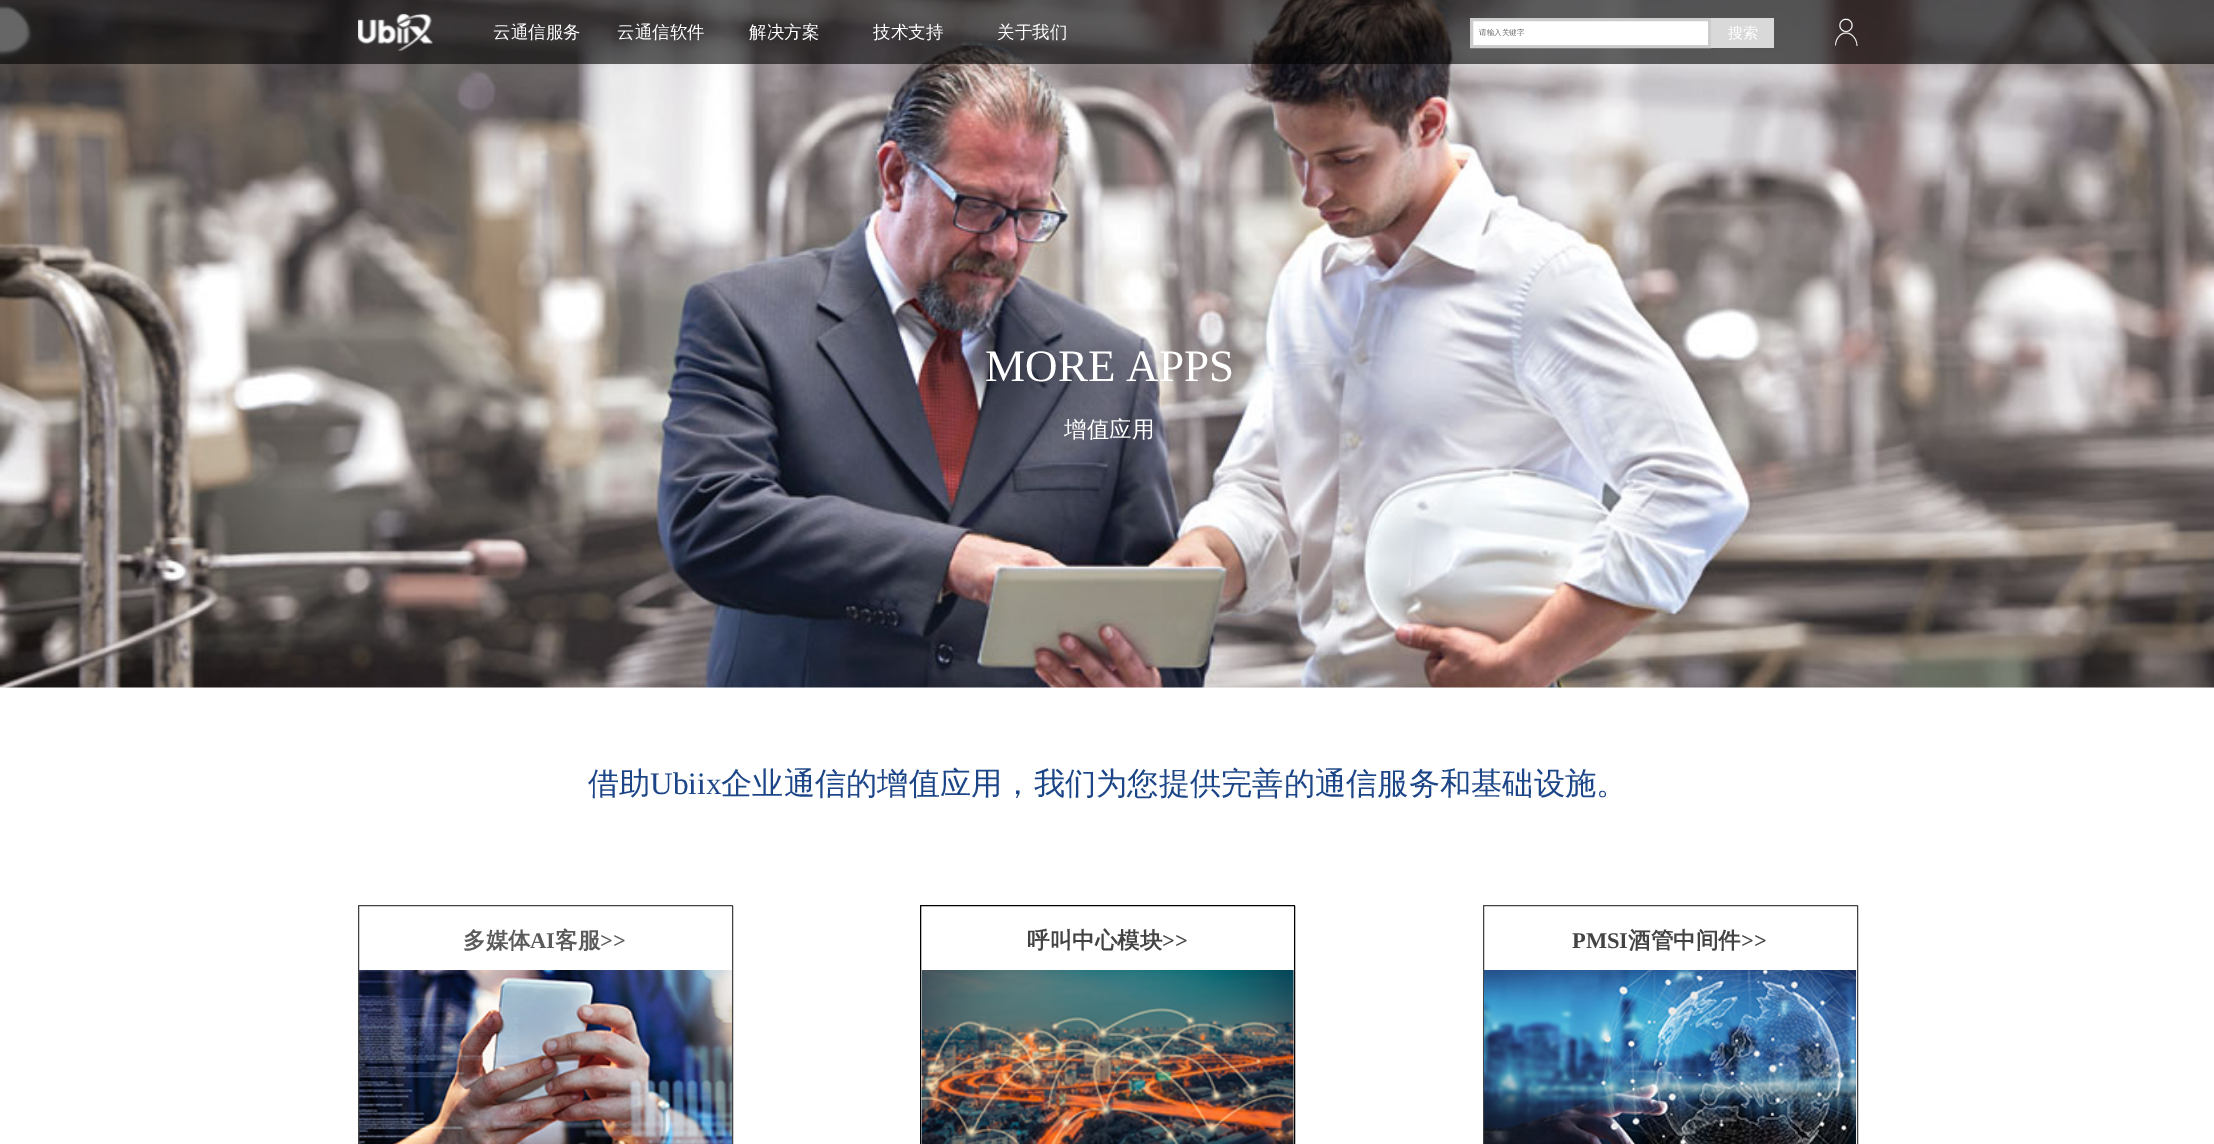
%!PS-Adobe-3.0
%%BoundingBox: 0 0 2214 1144
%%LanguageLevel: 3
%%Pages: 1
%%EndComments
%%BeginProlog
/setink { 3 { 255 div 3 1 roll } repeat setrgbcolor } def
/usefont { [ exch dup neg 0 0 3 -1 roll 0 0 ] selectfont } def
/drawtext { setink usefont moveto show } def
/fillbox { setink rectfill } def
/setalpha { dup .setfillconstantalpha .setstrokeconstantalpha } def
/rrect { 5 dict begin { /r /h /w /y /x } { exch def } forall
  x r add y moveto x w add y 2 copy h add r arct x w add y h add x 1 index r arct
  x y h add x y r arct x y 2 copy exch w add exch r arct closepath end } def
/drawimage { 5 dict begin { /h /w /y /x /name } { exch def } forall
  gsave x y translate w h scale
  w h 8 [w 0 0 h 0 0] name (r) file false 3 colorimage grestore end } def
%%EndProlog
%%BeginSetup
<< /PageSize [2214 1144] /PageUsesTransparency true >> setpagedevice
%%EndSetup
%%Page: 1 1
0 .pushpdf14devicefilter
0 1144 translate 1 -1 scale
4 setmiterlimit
0 0 2214 1144 255 255 255 fillbox
(assets/img3.rgb) 0 0 2214 688 drawimage
0.6 setalpha
0 0 2214 64 0 0 0 fillbox
1 setalpha
(assets/img1.rgb) 358 13 75 38 drawimage
(云通信服务) 493 38 /WenQuanYiZenHei-Medium 17.5 255 255 255 drawtext
(云通信软件) 617 38 /WenQuanYiZenHei-Medium 17.5 255 255 255 drawtext
(解决方案) 749 38 /WenQuanYiZenHei-Medium 17.5 255 255 255 drawtext
(技术支持) 873 38 /WenQuanYiZenHei-Medium 17.5 255 255 255 drawtext
(关于我们) 997 38 /WenQuanYiZenHei-Medium 17.5 255 255 255 drawtext
1471.5 19.5 moveto 1709.5 19.5 lineto 1709.5 46.5 lineto 1471.5 46.5 lineto closepath gsave fill grestore
204 204 204 setink
3 setlinewidth
stroke
(请输入关键字) 1479 35 /WenQuanYiZenHei-Medium 7.5 102 102 102 drawtext
1711 18 63 30 217 217 217 fillbox
(搜索) 1728 38 /WenQuanYiZenHei-Medium 15 255 255 255 drawtext
(assets/img2.rgb) 1835 18 23 28 drawimage
(MORE APPS) 985 381 /LiberationSerif-Regular 45 255 255 255 drawtext
(增值应用) 1064 437 /WenQuanYiZenHei-Medium 22.5 255 255 255 drawtext
(借助) 588 794 /WenQuanYiZenHei-Medium 31.25 28 69 135 drawtext
(Ubiix) 650 794 /LiberationSerif-Regular 31.25 28 69 135 drawtext
(企业通信的增值应用，我们为您提供完善的通信服务和基础设施。) 721 794 /WenQuanYiZenHei-Medium 31.25 28 69 135 drawtext
(assets/img4.rgb) 359 970 373 174 drawimage
67 67 67 setink
1 setlinewidth
358.5 905.5 374 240 0.5 rrect stroke
0 0 0 setink
920.5 905.5 374 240 0.5 rrect stroke
67 67 67 setink
1483.5 905.5 374 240 0.5 rrect stroke
(多媒体) 463 948 /WenQuanYiZenHei-Bold 22.5 90 90 90 drawtext
(AI) 530 948 /LiberationSerif-Bold 22.5 90 90 90 drawtext
(客服) 555 948 /WenQuanYiZenHei-Bold 22.5 90 90 90 drawtext
(>>) 600 948 /LiberationSerif-Bold 22.5 90 90 90 drawtext
(呼叫中心模块) 1027 948 /WenQuanYiZenHei-Bold 22.5 67 67 67 drawtext
(>>) 1162 948 /LiberationSerif-Bold 22.5 67 67 67 drawtext
(PMSI) 1572 948 /LiberationSerif-Bold 22.5 67 67 67 drawtext
(酒管中间件) 1628 948 /WenQuanYiZenHei-Bold 22.5 67 67 67 drawtext
(>>) 1741 948 /LiberationSerif-Bold 22.5 67 67 67 drawtext
(assets/img5.rgb) 921 970 373 174 drawimage
(assets/img6.rgb) 1483 970 374 174 drawimage
.poppdf14devicefilter showpage
%%EOF
